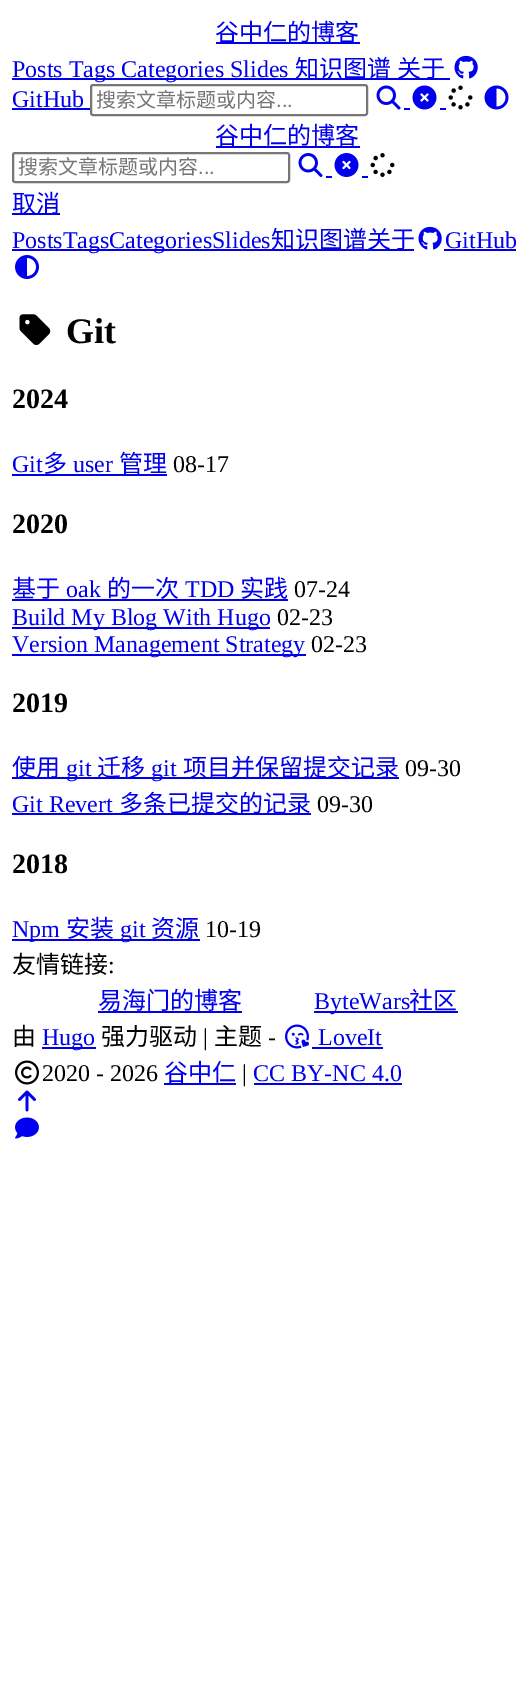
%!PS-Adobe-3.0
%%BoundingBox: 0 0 530 1705
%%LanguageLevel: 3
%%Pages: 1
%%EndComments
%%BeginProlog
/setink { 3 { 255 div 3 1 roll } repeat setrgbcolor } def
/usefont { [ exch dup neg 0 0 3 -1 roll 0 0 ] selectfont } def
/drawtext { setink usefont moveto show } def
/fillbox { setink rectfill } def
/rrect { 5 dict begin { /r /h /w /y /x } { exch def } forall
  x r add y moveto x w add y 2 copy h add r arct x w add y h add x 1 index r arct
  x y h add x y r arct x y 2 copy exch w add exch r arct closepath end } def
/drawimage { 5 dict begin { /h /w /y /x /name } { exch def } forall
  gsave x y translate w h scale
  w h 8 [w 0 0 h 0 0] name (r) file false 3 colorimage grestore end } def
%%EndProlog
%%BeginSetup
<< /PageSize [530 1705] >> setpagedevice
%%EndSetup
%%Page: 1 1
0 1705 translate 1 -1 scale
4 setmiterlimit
0 0 530 1705 255 255 255 fillbox
216 42 144 2 0 0 238 fillbox
(谷中仁的博客) 215 41 /NotoSansCJKSC-Regular 24 0 0 238 drawtext
12 78 438 2 0 0 238 fillbox
(Posts Tags Categories Slides) 12 77 /LiberationSerif-Regular 24 0 0 238 drawtext
(知识图谱) 295 77 /NotoSansCJKSC-Regular 24 0 0 238 drawtext
(关于) 397 77 /NotoSansCJKSC-Regular 24 0 0 238 drawtext
(assets/img1.rgb) 454 55 24 24 drawimage
(GitHub) 12 107 /LiberationSerif-Regular 24 0 0 238 drawtext
12 108 78 2 0 0 238 fillbox
118 118 118 setink
2 setlinewidth
91 85 276 30 2 rrect stroke
(搜索文章标题或内容) 96 107 /NotoSansCJKSC-Regular 20 117 117 117 drawtext
(...) 276 107 /LiberationSans-Regular 20 117 117 117 drawtext
(assets/img2.rgb) 376 85 25 25 drawimage
404 108 6 2 0 0 238 fillbox
(assets/img3.rgb) 412 85 25 25 drawimage
440 108 6 2 0 0 238 fillbox
(assets/img4.rgb) 448 85 25 25 drawimage
(assets/img5.rgb) 484 85 25 25 drawimage
(谷中仁的博客) 215 144 /NotoSansCJKSC-Regular 24 0 0 238 drawtext
216 146 144 2 0 0 238 fillbox
118 118 118 setink
13 153 276 29 2 rrect stroke
(搜索文章标题或内容) 18 174 /NotoSansCJKSC-Regular 20 117 117 117 drawtext
(...) 198 174 /LiberationSans-Regular 20 117 117 117 drawtext
(assets/img6.rgb) 298 153 25 24 drawimage
326 176 6 2 0 0 238 fillbox
(assets/img7.rgb) 334 153 25 24 drawimage
362 176 6 2 0 0 238 fillbox
(assets/img8.rgb) 370 153 25 24 drawimage
12 213 48 2 0 0 238 fillbox
(取消) 12 212 /NotoSansCJKSC-Regular 24 0 0 238 drawtext
12 249 402 2 0 0 238 fillbox
(PostsTagsCategoriesSlides) 12 248 /LiberationSerif-Regular 24 0 0 238 drawtext
(知识图谱关于) 271 248 /NotoSansCJKSC-Regular 24 0 0 238 drawtext
(assets/img1.rgb) 418 226 24 24 drawimage
(GitHub) 445 248 /LiberationSerif-Regular 24 0 0 238 drawtext
444 249 72 2 0 0 238 fillbox
(assets/img9.rgb) 15 255 24 24 drawimage
(assets/img10.rgb) 19 314 32 31 drawimage
(Git) 66 343 /LiberationSerif-Bold 36 0 0 0 drawtext
(2024) 12 408 /LiberationSerif-Bold 28 0 0 0 drawtext
(Git) 12 472 /LiberationSerif-Regular 24 0 0 238 drawtext
(多) 43 472 /NotoSansCJKSC-Regular 24 0 0 238 drawtext
(user) 73 472 /LiberationSerif-Regular 24 0 0 238 drawtext
12 474 155 2 0 0 238 fillbox
(管理) 119 472 /NotoSansCJKSC-Regular 24 0 0 238 drawtext
(08-17) 173 472 /LiberationSerif-Regular 24 0 0 0 drawtext
(2020) 12 533 /LiberationSerif-Bold 28 0 0 0 drawtext
(基于) 12 597 /NotoSansCJKSC-Regular 24 0 0 238 drawtext
(oak) 66 597 /LiberationSerif-Regular 24 0 0 238 drawtext
(的一次) 107 597 /NotoSansCJKSC-Regular 24 0 0 238 drawtext
(TDD) 185 597 /LiberationSerif-Regular 24 0 0 238 drawtext
12 599 276 2 0 0 238 fillbox
(实践) 240 597 /NotoSansCJKSC-Regular 24 0 0 238 drawtext
(07-24) 294 597 /LiberationSerif-Regular 24 0 0 0 drawtext
12 627 258 2 0 0 238 fillbox
(Build My Blog With Hugo) 12 625 /LiberationSerif-Regular 24 0 0 238 drawtext
(02-23) 277 625 /LiberationSerif-Regular 24 0 0 0 drawtext
12 654 294 2 0 0 238 fillbox
(Version Management Strategy) 12 652 /LiberationSerif-Regular 24 0 0 238 drawtext
(02-23) 311 652 /LiberationSerif-Regular 24 0 0 0 drawtext
(2019) 12 712 /LiberationSerif-Bold 28 0 0 0 drawtext
12 777 387 2 0 0 238 fillbox
(使用) 12 776 /NotoSansCJKSC-Regular 24 0 0 238 drawtext
(git) 66 776 /LiberationSerif-Regular 24 0 0 238 drawtext
(迁移) 97 776 /NotoSansCJKSC-Regular 24 0 0 238 drawtext
(git) 151 776 /LiberationSerif-Regular 24 0 0 238 drawtext
(项目并保留提交记录) 183 776 /NotoSansCJKSC-Regular 24 0 0 238 drawtext
(09-30) 405 776 /LiberationSerif-Regular 24 0 0 0 drawtext
(Git Revert) 12 812 /LiberationSerif-Regular 24 0 0 238 drawtext
12 813 299 2 0 0 238 fillbox
(多条已提交的记录) 119 812 /NotoSansCJKSC-Regular 24 0 0 238 drawtext
(09-30) 317 812 /LiberationSerif-Regular 24 0 0 0 drawtext
(2018) 12 873 /LiberationSerif-Bold 28 0 0 0 drawtext
12 939 188 2 0 0 238 fillbox
(Npm) 12 937 /LiberationSerif-Regular 24 0 0 238 drawtext
(安装) 66 937 /NotoSansCJKSC-Regular 24 0 0 238 drawtext
(git) 120 937 /LiberationSerif-Regular 24 0 0 238 drawtext
(资源) 151 937 /NotoSansCJKSC-Regular 24 0 0 238 drawtext
(10-19) 205 937 /LiberationSerif-Regular 24 0 0 0 drawtext
(友情链接) 12 973 /NotoSansCJKSC-Regular 24 0 0 0 drawtext
(:) 108 973 /LiberationSerif-Regular 24 0 0 0 drawtext
(易海门的博客) 98 1009 /NotoSansCJKSC-Regular 24 0 0 238 drawtext
98 1011 144 2 0 0 238 fillbox
314 1011 144 2 0 0 238 fillbox
(ByteWars) 314 1009 /LiberationSerif-Regular 24 0 0 238 drawtext
(社区) 409 1009 /NotoSansCJKSC-Regular 24 0 0 238 drawtext
(由) 12 1045 /NotoSansCJKSC-Regular 24 0 0 0 drawtext
42 1047 54 2 0 0 238 fillbox
(Hugo) 42 1045 /LiberationSerif-Regular 24 0 0 238 drawtext
(强力驱动) 101 1045 /NotoSansCJKSC-Regular 24 0 0 0 drawtext
(|) 203 1045 /LiberationSerif-Regular 24 0 0 0 drawtext
(主题) 214 1045 /NotoSansCJKSC-Regular 24 0 0 0 drawtext
(-) 268 1045 /LiberationSerif-Regular 24 0 0 0 drawtext
(assets/img11.rgb) 285 1024 24 25 drawimage
(LoveIt) 318 1045 /LiberationSerif-Regular 24 0 0 238 drawtext
312 1047 71 2 0 0 238 fillbox
(assets/img12.rgb) 15 1060 24 25 drawimage
(2020 - 2026) 42 1081 /LiberationSerif-Regular 24 0 0 0 drawtext
(谷中仁) 164 1081 /NotoSansCJKSC-Regular 24 0 0 238 drawtext
164 1083 72 2 0 0 238 fillbox
(|) 242 1081 /LiberationSerif-Regular 24 0 0 0 drawtext
(CC BY-NC 4.0) 253 1081 /LiberationSerif-Regular 24 0 0 238 drawtext
254 1083 148 2 0 0 238 fillbox
(assets/img13.rgb) 18 1090 18 22 drawimage
(assets/img14.rgb) 15 1117 24 22 drawimage
showpage
%%EOF
